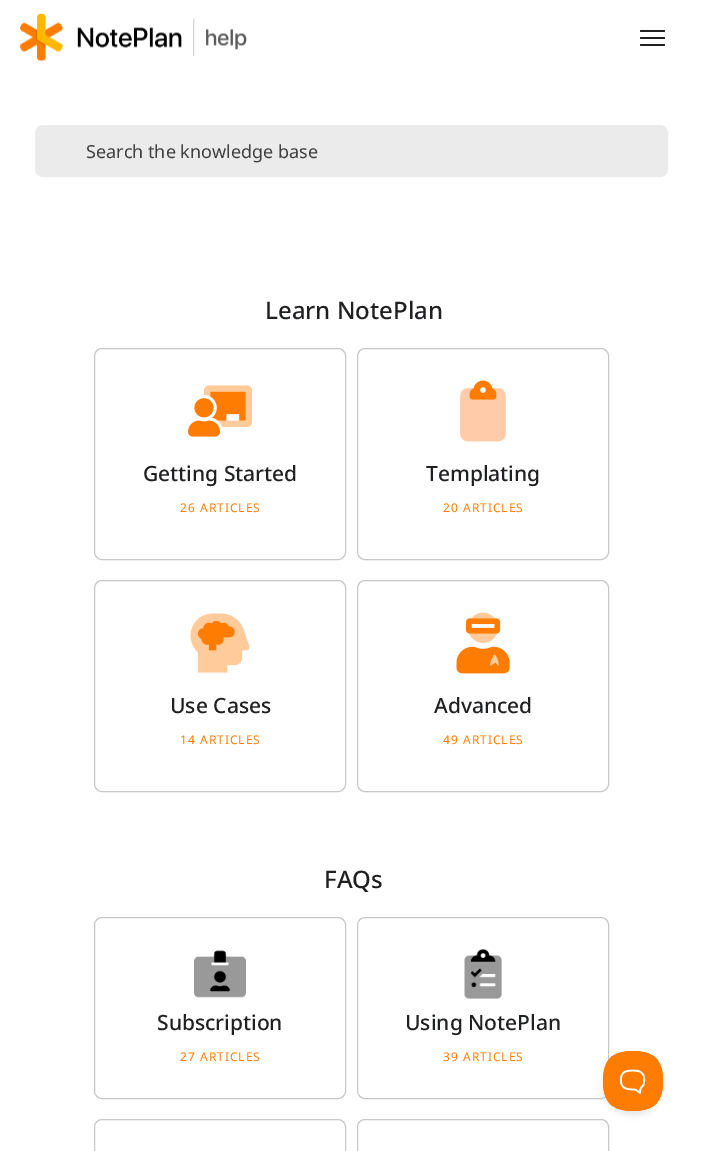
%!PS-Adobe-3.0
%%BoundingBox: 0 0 703 1151
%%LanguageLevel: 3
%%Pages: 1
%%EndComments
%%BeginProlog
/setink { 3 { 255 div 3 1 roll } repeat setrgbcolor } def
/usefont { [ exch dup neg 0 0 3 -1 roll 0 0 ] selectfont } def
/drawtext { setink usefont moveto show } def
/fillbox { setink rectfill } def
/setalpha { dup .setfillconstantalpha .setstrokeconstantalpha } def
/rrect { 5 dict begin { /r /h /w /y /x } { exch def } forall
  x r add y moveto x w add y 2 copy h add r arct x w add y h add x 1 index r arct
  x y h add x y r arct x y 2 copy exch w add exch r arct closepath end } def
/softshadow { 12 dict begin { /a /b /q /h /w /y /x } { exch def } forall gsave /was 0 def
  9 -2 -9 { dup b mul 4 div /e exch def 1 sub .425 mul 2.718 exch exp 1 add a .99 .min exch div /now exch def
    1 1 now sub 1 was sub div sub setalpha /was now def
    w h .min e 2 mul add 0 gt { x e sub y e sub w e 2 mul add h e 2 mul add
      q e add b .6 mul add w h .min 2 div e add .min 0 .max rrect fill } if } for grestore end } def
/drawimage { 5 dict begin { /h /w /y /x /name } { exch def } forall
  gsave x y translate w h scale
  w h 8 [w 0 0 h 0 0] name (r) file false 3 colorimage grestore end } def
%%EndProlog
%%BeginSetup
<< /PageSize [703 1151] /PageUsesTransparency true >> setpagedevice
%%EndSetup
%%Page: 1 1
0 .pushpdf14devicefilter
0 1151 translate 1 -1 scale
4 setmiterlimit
0 0 703 1151 255 255 255 fillbox
(assets/img1.rgb) 20 13 227 49 drawimage
31 32 34 setink
640 30 25 2 1 rrect fill
640 37 25 2 1 rrect fill
640 44 25 2 1 rrect fill
235 235 235 setink
35.5 125.5 632 51 7.5 rrect gsave fill grestore
235 236 239 setink
stroke
(Search the knowledge base) 86 158 /NotoSans-Regular 18 62 63 65 drawtext
(Learn NotePlan) 265 319 /NotoSans-Medium 24 31 32 34 drawtext
(assets/img2.rgb) 188 385 64 52 drawimage
199 199 199 setink
94.5 348.5 251 211 7.5 rrect stroke
(Getting Started) 143 481 /NotoSans-Medium 21 31 32 34 drawtext
/NotoSans-Regular 12 usefont
254 124 2 setink
180 512 moveto 1 0 (26 ARTICLES) ashow
(assets/img3.rgb) 460 380 46 62 drawimage
199 199 199 setink
357.5 348.5 251 211 7.5 rrect stroke
(Templating) 426 481 /NotoSans-Medium 21 31 32 34 drawtext
/NotoSans-Regular 12 usefont
254 124 2 setink
443 512 moveto 1 0 (20 ARTICLES) ashow
(assets/img4.rgb) 190 613 60 60 drawimage
199 199 199 setink
94.5 580.5 251 211 7.5 rrect stroke
(Use Cases) 170 713 /NotoSans-Medium 21 31 32 34 drawtext
/NotoSans-Regular 12 usefont
254 124 2 setink
180 744 moveto 1 0 (14 ARTICLES) ashow
(assets/img5.rgb) 456 612 54 62 drawimage
199 199 199 setink
357.5 580.5 251 211 7.5 rrect stroke
(Advanced) 434 713 /NotoSans-Medium 21 31 32 34 drawtext
/NotoSans-Regular 12 usefont
254 124 2 setink
443 744 moveto 1 0 (49 ARTICLES) ashow
(FAQs) 324 888 /NotoSans-Medium 24 31 32 34 drawtext
(assets/img6.rgb) 194 950 52 48 drawimage
199 199 199 setink
94.5 917.5 251 181 7.5 rrect stroke
(Subscription) 157 1030 /NotoSans-Medium 21 31 32 34 drawtext
/NotoSans-Regular 12 usefont
254 124 2 setink
180 1061 moveto 1 0 (27 ARTICLES) ashow
(assets/img7.rgb) 464 949 38 50 drawimage
199 199 199 setink
357.5 917.5 251 181 7.5 rrect stroke
(Using NotePlan) 405 1030 /NotoSans-Medium 21 31 32 34 drawtext
/NotoSans-Regular 12 usefont
254 124 2 setink
443 1061 moveto 1 0 (39 ARTICLES) ashow
199 199 199 setink
94.5 1119.5 251 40 7.5 rrect stroke
357.5 1119.5 251 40 7.5 rrect stroke
0 0 0 setink
603 1055 60 60 30 3.5 0.1 softshadow
(assets/img8.rgb) 603 1051 60 60 drawimage
.poppdf14devicefilter showpage
%%EOF
